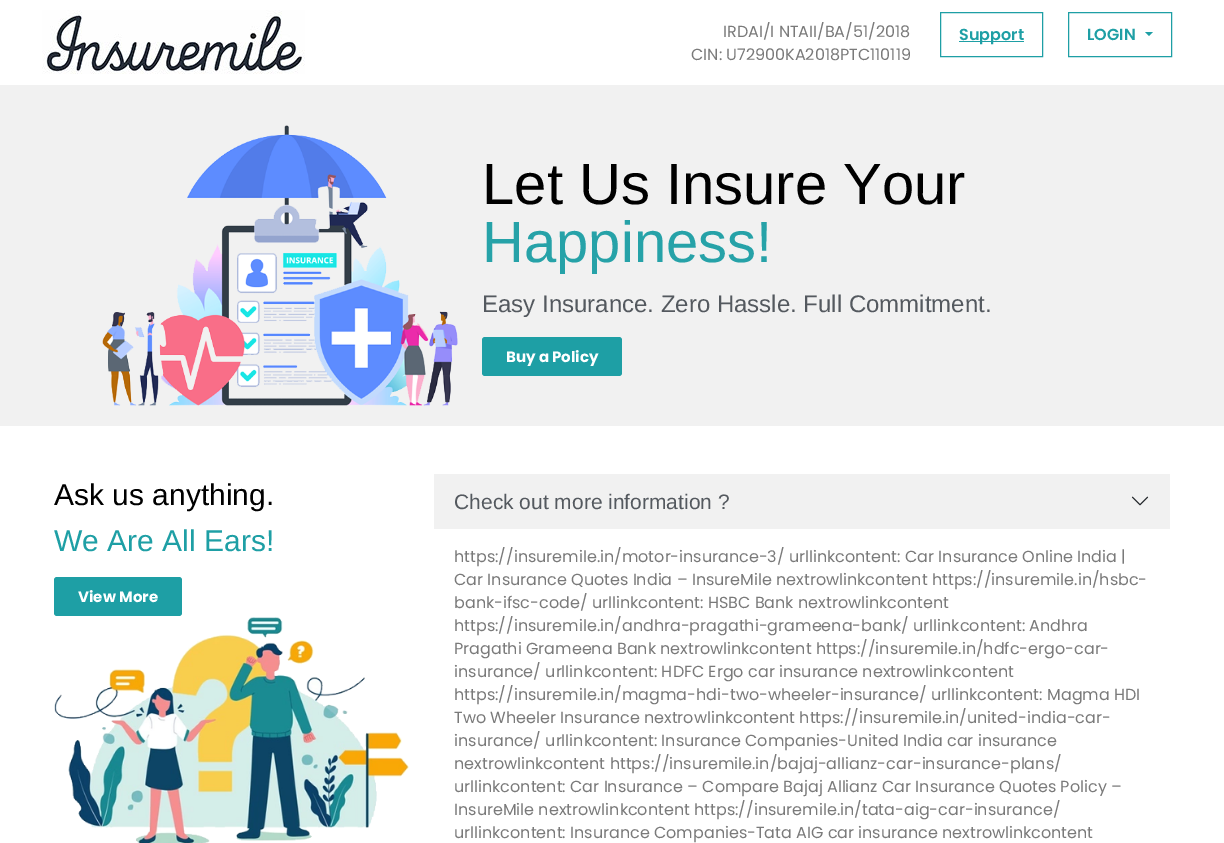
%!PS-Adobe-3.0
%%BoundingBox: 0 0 1224 843
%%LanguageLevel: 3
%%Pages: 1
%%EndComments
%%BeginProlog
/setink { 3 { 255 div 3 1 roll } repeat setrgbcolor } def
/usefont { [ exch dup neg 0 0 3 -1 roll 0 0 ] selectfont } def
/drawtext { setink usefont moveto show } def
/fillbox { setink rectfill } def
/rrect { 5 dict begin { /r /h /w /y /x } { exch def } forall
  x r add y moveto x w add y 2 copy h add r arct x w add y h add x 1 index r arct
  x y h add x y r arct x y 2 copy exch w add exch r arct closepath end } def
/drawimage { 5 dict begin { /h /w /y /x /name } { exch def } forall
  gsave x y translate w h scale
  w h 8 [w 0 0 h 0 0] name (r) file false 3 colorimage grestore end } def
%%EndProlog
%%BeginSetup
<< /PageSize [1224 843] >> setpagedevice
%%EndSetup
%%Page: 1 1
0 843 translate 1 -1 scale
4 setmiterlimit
0 0 1224 843 255 255 255 fillbox
(assets/img1.rgb) 42 10 263 64 drawimage
(IRDAI/I NTAII/BA/51/2018) 723 37 /Poppins-Regular 16 122 122 122 drawtext
(CIN: U72900KA2018PTC110119) 691 60 /Poppins-Regular 16 122 122 122 drawtext
30 159 165 setink
940.5 12.5 102 44 rectstroke
959 41 65 1 30 159 165 fillbox
(Support) 959 40 /Poppins-SemiBold 16 30 159 165 drawtext
1068.5 12.5 103 44 rectstroke
(LOGIN) 1087 40 /Poppins-SemiBold 16 30 159 165 drawtext
1145 32 moveto 1153 32 lineto 1149 36 lineto closepath fill
0 85 1224 341 241 241 241 fillbox
(assets/img2.rgb) 102 125 356 281 drawimage
(Let Us Insure Your) 482 204 /LiberationSans-Regular 58 0 0 0 drawtext
(Happiness!) 482 262 /LiberationSans-Regular 58 38 162 168 drawtext
(Easy Insurance. Zero Hassle. Full Commitment.) 482 312 /LiberationSans-Regular 24 84 89 95 drawtext
30 159 165 setink
482 337 140 39 3 rrect fill
(Buy a Policy) 506 362 /Poppins-Bold 15 255 255 255 drawtext
(Ask us anything.) 54 505 /LiberationSans-Regular 30 0 0 0 drawtext
(We Are All Ears!) 54 551 /LiberationSans-Regular 30 30 159 165 drawtext
54 577 128 39 3 rrect fill
(View More) 78 602 /Poppins-Bold 15 255 255 255 drawtext
(assets/img3.rgb) 54 617 355 226 drawimage
434 474 736 55 241 241 241 fillbox
(Check out more information ?) 454 509 /LiberationSans-Regular 21 84 89 95 drawtext
(assets/img4.rgb) 1131 496 18 10 drawimage
(https://insuremile.in/motor-insurance-3/ urllinkcontent: Car Insurance Online India |) 454 562 /Poppins-Regular 16 122 122 122 drawtext
(Car Insurance Quotes India – InsureMile nextrowlinkcontent https://insuremile.in/hsbc-) 454 585 /Poppins-Regular 16 122 122 122 drawtext
(bank-ifsc-code/ urllinkcontent: HSBC Bank nextrowlinkcontent) 454 608 /Poppins-Regular 16 122 122 122 drawtext
(https://insuremile.in/andhra-pragathi-grameena-bank/ urllinkcontent: Andhra) 454 631 /Poppins-Regular 16 122 122 122 drawtext
(Pragathi Grameena Bank nextrowlinkcontent https://insuremile.in/hdfc-ergo-car-) 454 654 /Poppins-Regular 16 122 122 122 drawtext
(insurance/ urllinkcontent: HDFC Ergo car insurance nextrowlinkcontent) 454 677 /Poppins-Regular 16 122 122 122 drawtext
(https://insuremile.in/magma-hdi-two-wheeler-insurance/ urllinkcontent: Magma HDI) 454 700 /Poppins-Regular 16 122 122 122 drawtext
(Two Wheeler Insurance nextrowlinkcontent https://insuremile.in/united-india-car-) 454 723 /Poppins-Regular 16 122 122 122 drawtext
(insurance/ urllinkcontent: Insurance Companies-United India car insurance) 454 746 /Poppins-Regular 16 122 122 122 drawtext
(nextrowlinkcontent https://insuremile.in/bajaj-allianz-car-insurance-plans/) 454 769 /Poppins-Regular 16 122 122 122 drawtext
(urllinkcontent: Car Insurance – Compare Bajaj Allianz Car Insurance Quotes Policy –) 454 792 /Poppins-Regular 16 122 122 122 drawtext
(InsureMile nextrowlinkcontent https://insuremile.in/tata-aig-car-insurance/) 454 815 /Poppins-Regular 16 122 122 122 drawtext
(urllinkcontent: Insurance Companies-Tata AIG car insurance nextrowlinkcontent) 454 838 /Poppins-Regular 16 122 122 122 drawtext
showpage
%%EOF
